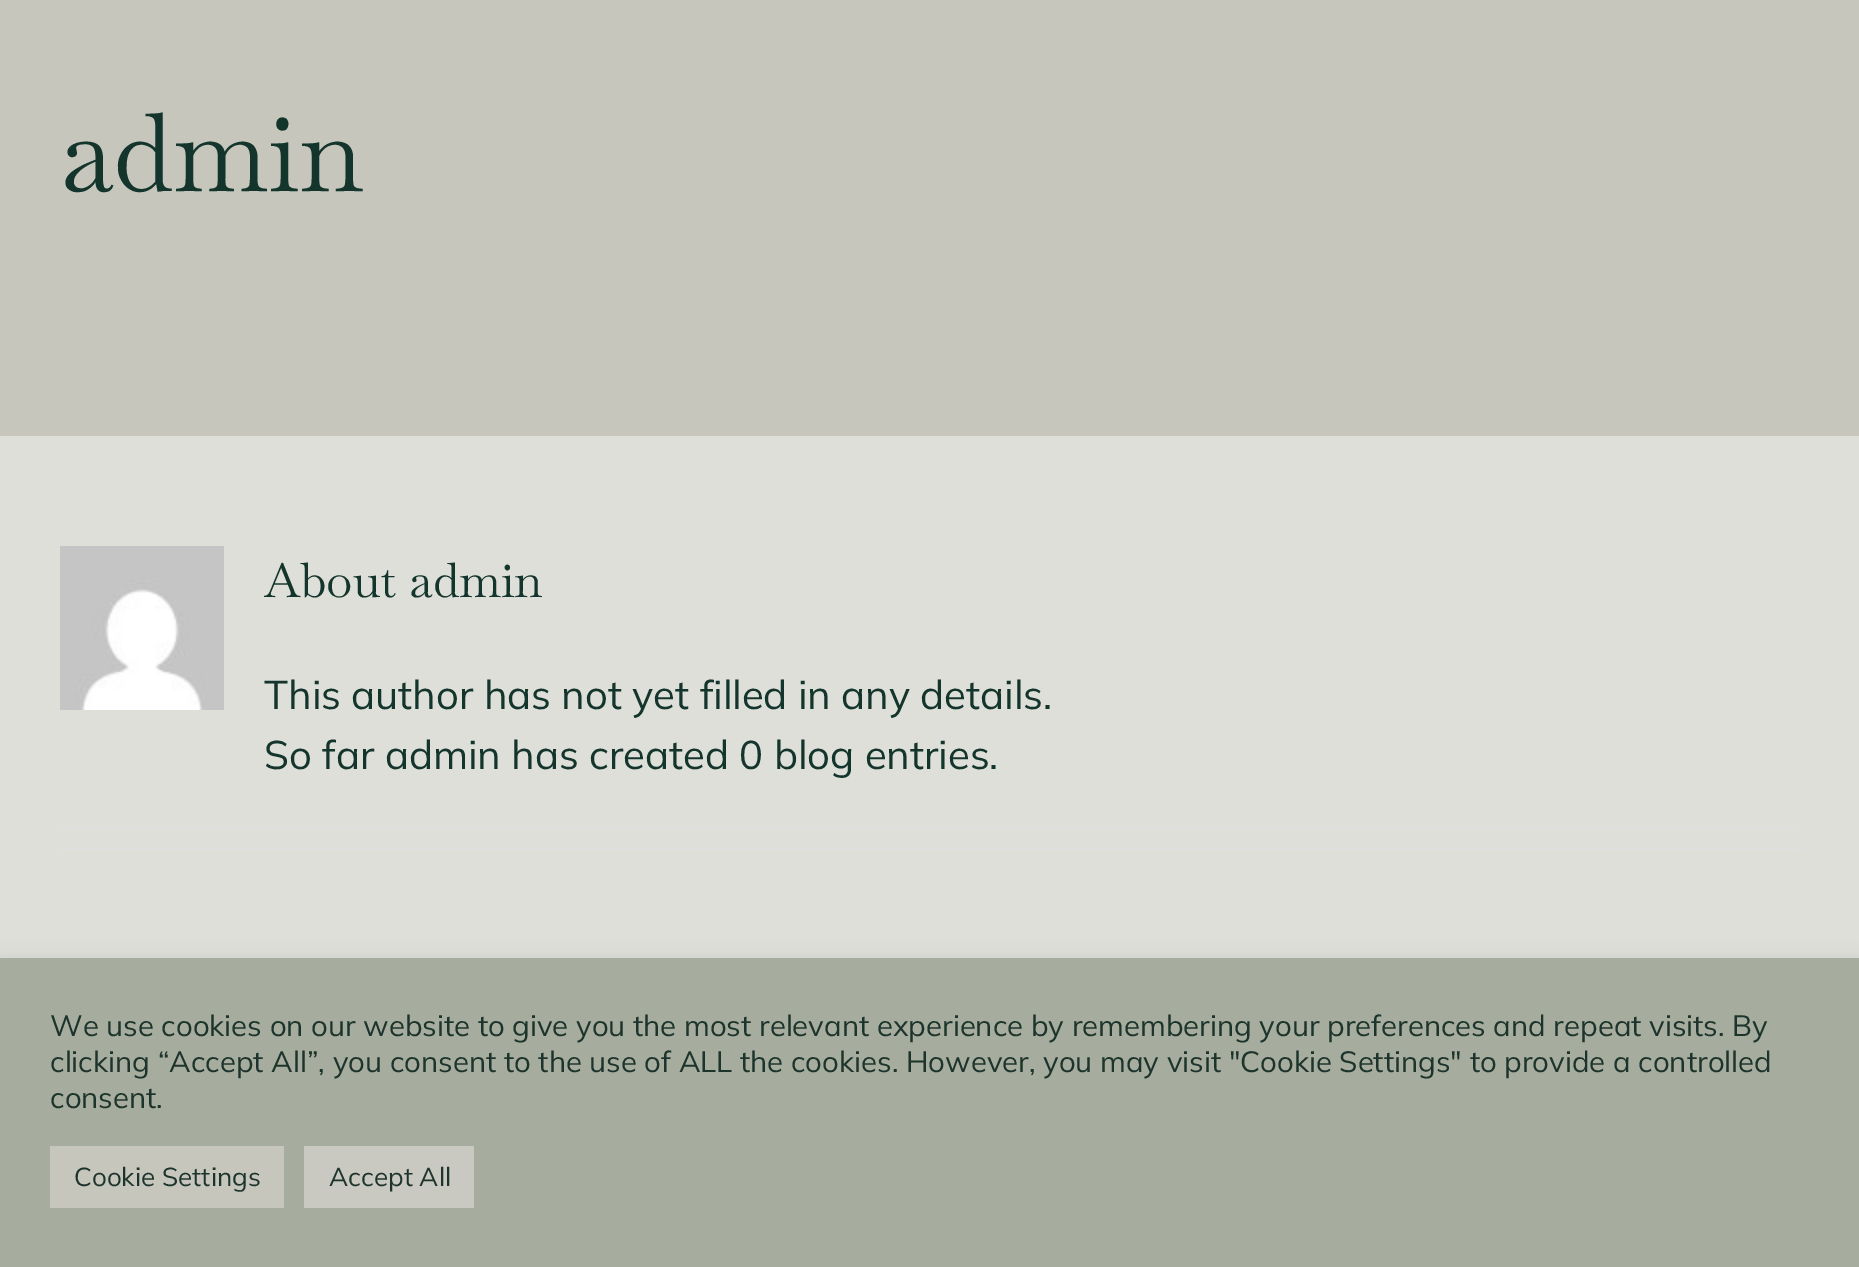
%!PS-Adobe-3.0
%%BoundingBox: 0 0 1859 1267
%%LanguageLevel: 3
%%Pages: 1
%%EndComments
%%BeginProlog
/setink { 3 { 255 div 3 1 roll } repeat setrgbcolor } def
/usefont { [ exch dup neg 0 0 3 -1 roll 0 0 ] selectfont } def
/drawtext { setink usefont moveto show } def
/fillbox { setink rectfill } def
/setalpha { dup .setfillconstantalpha .setstrokeconstantalpha } def
/rrect { 5 dict begin { /r /h /w /y /x } { exch def } forall
  x r add y moveto x w add y 2 copy h add r arct x w add y h add x 1 index r arct
  x y h add x y r arct x y 2 copy exch w add exch r arct closepath end } def
/softshadow { 12 dict begin { /a /b /q /h /w /y /x } { exch def } forall gsave /was 0 def
  9 -2 -9 { dup b mul 4 div /e exch def 1 sub .425 mul 2.718 exch exp 1 add a .99 .min exch div /now exch def
    1 1 now sub 1 was sub div sub setalpha /was now def
    w h .min e 2 mul add 0 gt { x e sub y e sub w e 2 mul add h e 2 mul add
      q e add b .6 mul add w h .min 2 div e add .min 0 .max rrect fill } if } for grestore end } def
/drawimage { 5 dict begin { /h /w /y /x /name } { exch def } forall
  gsave x y translate w h scale
  w h 8 [w 0 0 h 0 0] name (r) file false 3 colorimage grestore end } def
%%EndProlog
%%BeginSetup
<< /PageSize [1859 1267] /PageUsesTransparency true >> setpagedevice
%%EndSetup
%%Page: 1 1
0 .pushpdf14devicefilter
0 1267 translate 1 -1 scale
4 setmiterlimit
0 0 1859 1267 223 223 218 fillbox
0 0 1859 436 198 198 189 fillbox
(admin) 60 191 /Baskervville-Regular 109 19 53 44 drawtext
(assets/img1.rgb) 60 546 164 164 drawimage
gsave
264 546 1536 240 rectclip
(About) 264 597 /Baskervville-Regular 48 19 53 44 drawtext
grestore
(admin) 409 597 /Baskervville-Regular 48 19 53 44 drawtext
(This author has not yet filled in any details.) 264 709 /Mulish-Regular 40 19 53 44 drawtext
(So far admin has created 0 blog entries.) 264 769 /Mulish-Regular 40 19 53 44 drawtext
60 826 1740 2 224 222 222 fillbox
60 848 1740 2 224 222 222 fillbox
172 171 171 setink
0 956 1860 310 0 10 0.3 softshadow
0 958 1859 309 167 173 158 fillbox
(We use cookies on our website to give you the most relevant experience by remembering your preferences and repeat visits. By) 50 1036 /Mulish-Regular 29.33 29 52 44 drawtext
(clicking “Accept All”, you consent to the use of ALL the cookies. However, you may visit "Cookie Settings" to provide a controlled) 50 1072 /Mulish-Regular 29.33 29 52 44 drawtext
(consent.) 50 1108 /Mulish-Regular 29.33 29 52 44 drawtext
50 1146 234 62 198 198 189 fillbox
(Cookie Settings) 74 1186 /Mulish-Regular 26 29 52 44 drawtext
304 1146 170 62 201 200 193 fillbox
(Accept All) 329 1186 /Mulish-Regular 26 29 52 44 drawtext
.poppdf14devicefilter showpage
%%EOF
